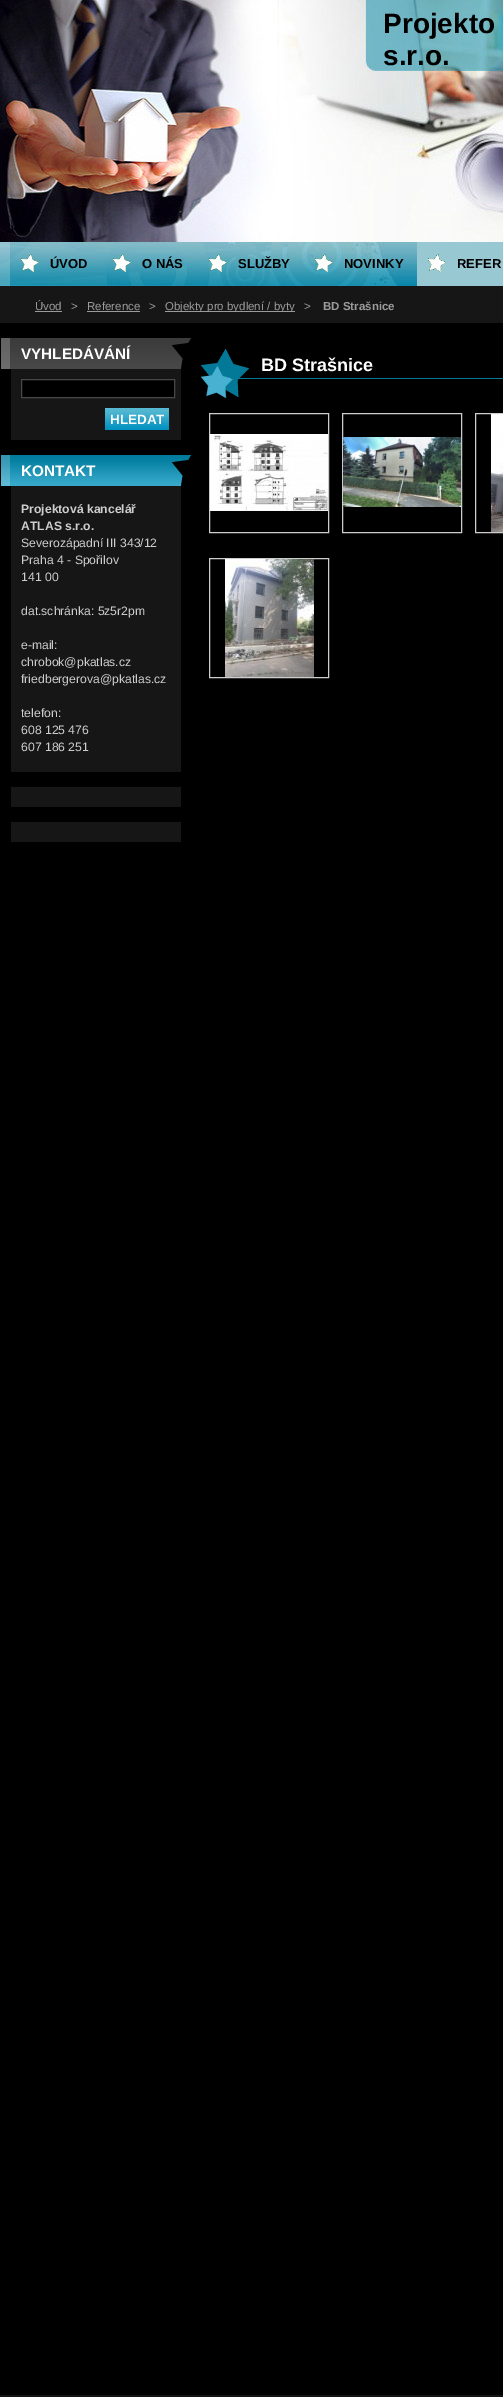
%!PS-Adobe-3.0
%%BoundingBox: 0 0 503 2397
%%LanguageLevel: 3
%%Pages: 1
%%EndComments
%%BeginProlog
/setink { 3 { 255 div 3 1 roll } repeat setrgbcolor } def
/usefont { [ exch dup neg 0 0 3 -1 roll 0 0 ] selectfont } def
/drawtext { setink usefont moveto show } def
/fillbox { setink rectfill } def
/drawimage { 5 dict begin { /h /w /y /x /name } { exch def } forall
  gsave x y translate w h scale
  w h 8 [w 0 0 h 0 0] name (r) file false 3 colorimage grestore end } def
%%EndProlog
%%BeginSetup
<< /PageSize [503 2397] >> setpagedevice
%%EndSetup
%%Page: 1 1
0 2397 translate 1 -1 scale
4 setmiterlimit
0 0 503 2397 0 0 0 fillbox
(assets/img1.rgb) 0 0 503 242 drawimage
(Projekto) 383 33 /LiberationSans-Bold 28 0 0 0 drawtext
(s.r.o.) 383 65 /LiberationSans-Bold 28 0 0 0 drawtext
(assets/img2.rgb) 0 242 417 44 drawimage
(assets/img3.rgb) 21 254 18 18 drawimage
(ÚVOD) 50 268 /LiberationSans-Bold 13 0 0 0 drawtext
(assets/img4.rgb) 113 254 18 18 drawimage
(O NÁS) 142 268 /LiberationSans-Bold 13 0 0 0 drawtext
(assets/img5.rgb) 209 254 18 18 drawimage
(SLUŽBY) 238 268 /LiberationSans-Bold 13 0 0 0 drawtext
(assets/img6.rgb) 315 254 18 18 drawimage
(NOVINKY) 344 268 /LiberationSans-Bold 13 0 0 0 drawtext
417 242 86 44 152 200 209 fillbox
(assets/img7.rgb) 428 254 18 18 drawimage
(REFER) 457 268 /LiberationSans-Bold 13 0 0 0 drawtext
0 286 503 37 22 22 22 fillbox
(Úvod) 35 310 /LiberationSans-Regular 11.5 155 155 155 drawtext
35 311 27 1 155 155 155 fillbox
(>) 71 310 /LiberationSans-Regular 11.5 155 155 155 drawtext
(Reference) 87 310 /LiberationSans-Regular 11.5 155 155 155 drawtext
87 311 53 1 155 155 155 fillbox
(>) 149 310 /LiberationSans-Regular 11.5 155 155 155 drawtext
165 311 130 1 155 155 155 fillbox
gsave
35 300 450 12 rectclip
(Objekty pro bydlení / byty) 165 310 /LiberationSans-Regular 11.5 155 155 155 drawtext
grestore
(>) 304 310 /LiberationSans-Regular 11.5 155 155 155 drawtext
(BD Strašnice) 323 310 /LiberationSans-Bold 11.5 155 155 155 drawtext
(assets/img8.rgb) 1 338 190 31 drawimage
(VYHLEDÁVÁNÍ) 21 359 /LiberationSans-Bold 15.25 255 255 255 drawtext
11 369 170 71 22 22 22 fillbox
0 0 0 setink
21.5 379.5 moveto 174.5 379.5 lineto 174.5 397.5 lineto 21.5 397.5 lineto closepath gsave fill grestore
72 72 72 setink
stroke
(assets/img9.rgb) 105 408 64 22 drawimage
(HLEDAT) 110 424 /LiberationSans-Bold 13.5 255 255 255 drawtext
(assets/img10.rgb) 1 455 190 31 drawimage
(KONTAKT) 21 476 /LiberationSans-Bold 15.25 255 255 255 drawtext
11 486 170 286 22 22 22 fillbox
(Projektová kancelář) 21 513 /LiberationSans-Bold 12.2 205 205 205 drawtext
(ATLAS s.r.o.) 21 530 /LiberationSans-Bold 12.2 205 205 205 drawtext
(Severozápadní III 343/12) 21 547 /LiberationSans-Regular 12.2 205 205 205 drawtext
(Praha 4 - Spořilov) 21 564 /LiberationSans-Regular 12.2 205 205 205 drawtext
(141 00) 21 581 /LiberationSans-Regular 12.2 205 205 205 drawtext
(dat.schránka: 5z5r2pm) 21 615 /LiberationSans-Regular 12.2 205 205 205 drawtext
(e-mail:) 21 649 /LiberationSans-Regular 12.2 205 205 205 drawtext
(chrobok@pkatlas.cz) 21 666 /LiberationSans-Regular 12.2 205 205 205 drawtext
(friedbergerova@pkatlas.cz) 21 683 /LiberationSans-Regular 12.2 205 205 205 drawtext
(telefon:) 21 717 /LiberationSans-Regular 12.2 205 205 205 drawtext
(608 125 476) 21 734 /LiberationSans-Regular 12.2 205 205 205 drawtext
(607 186 251) 21 751 /LiberationSans-Regular 12.2 205 205 205 drawtext
11 787 170 20 22 22 22 fillbox
11 822 170 20 22 22 22 fillbox
(assets/img11.rgb) 201 349 302 49 drawimage
(BD Strašnice) 261 371 /LiberationSans-Bold 18 255 255 255 drawtext
205 205 205 setink
209.5 413.5 119 119 rectstroke
(assets/img12.rgb) 210 434 118 77 drawimage
342.5 413.5 119 119 rectstroke
(assets/img13.rgb) 343 437 118 70 drawimage
475.5 413.5 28 119 rectstroke
(assets/img14.rgb) 491 414 12 118 drawimage
209.5 558.5 119 119 rectstroke
(assets/img15.rgb) 225 559 89 118 drawimage
0 2395 503 2 20 20 20 fillbox
showpage
%%EOF
